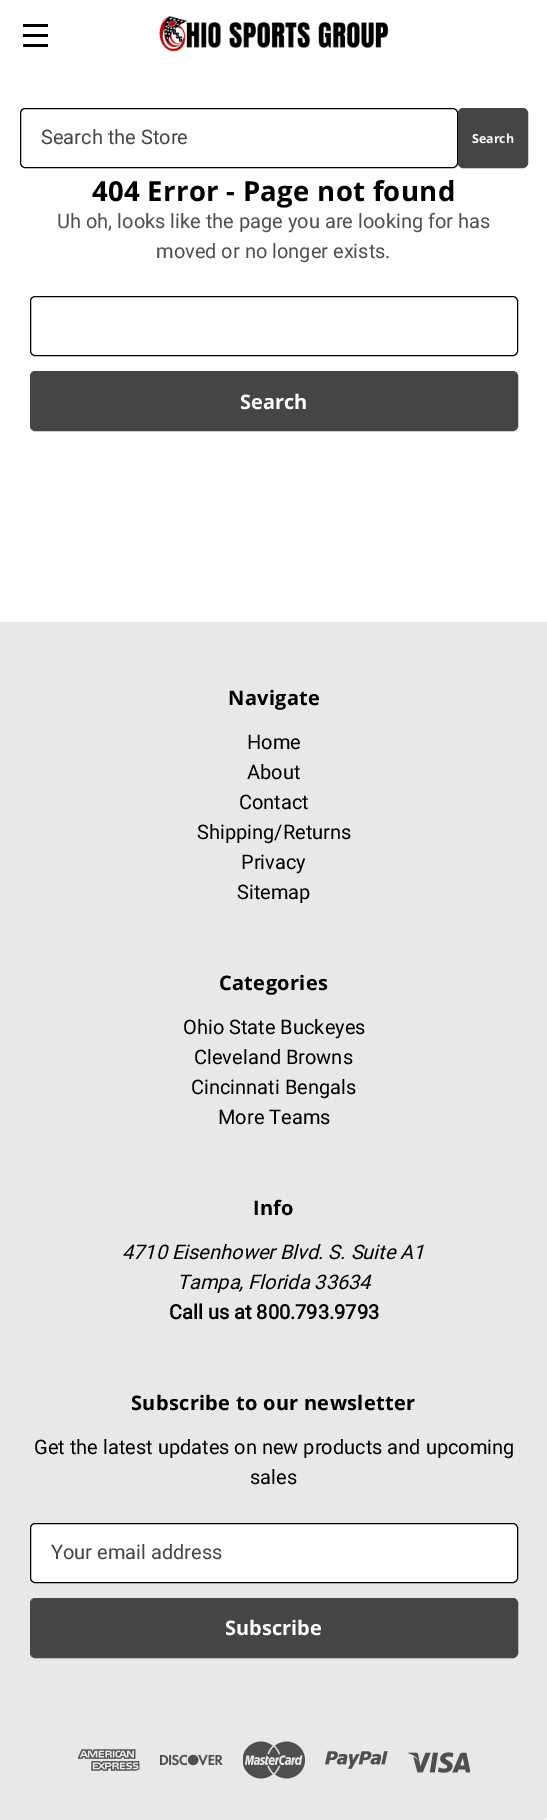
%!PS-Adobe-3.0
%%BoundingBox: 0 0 547 1820
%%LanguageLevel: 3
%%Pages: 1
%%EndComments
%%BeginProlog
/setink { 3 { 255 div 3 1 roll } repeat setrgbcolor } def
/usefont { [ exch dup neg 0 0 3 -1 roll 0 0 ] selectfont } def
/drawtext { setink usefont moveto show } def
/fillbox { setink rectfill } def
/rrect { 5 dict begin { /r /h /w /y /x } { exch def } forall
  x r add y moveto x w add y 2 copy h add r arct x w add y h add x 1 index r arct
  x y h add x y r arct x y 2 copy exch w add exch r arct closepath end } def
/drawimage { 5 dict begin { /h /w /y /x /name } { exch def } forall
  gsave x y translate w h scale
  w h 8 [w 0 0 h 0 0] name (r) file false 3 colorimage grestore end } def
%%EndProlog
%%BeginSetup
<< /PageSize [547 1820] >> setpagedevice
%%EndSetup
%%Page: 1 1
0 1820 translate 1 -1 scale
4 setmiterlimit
0 0 547 1820 255 255 255 fillbox
23 34 25 3 0 0 0 fillbox
23 24 25 3 0 0 0 fillbox
23 44 25 3 0 0 0 fillbox
(assets/img1.rgb) 159 15 230 37 drawimage
20.5 108.5 437 59 4.5 rrect stroke
(Search the Store) 41 144 /Roboto-Regular 20 69 69 69 drawtext
458.5 108.5 69 59 4.5 rrect gsave fill grestore
stroke
(Search) 472 143 /OpenSans-Bold 12.5 255 255 255 drawtext
/OpenSans-Bold 27.5 usefont
0 0 0 setink
92 201 moveto 0.3 0 (404 Error - Page not found) ashow
(Uh oh, looks like the page you are looking for has) 57 228 /Roboto-Regular 20 79 79 79 drawtext
(moved or no longer exists.) 156 258 /Roboto-Regular 20 79 79 79 drawtext
0 0 0 setink
30.5 296.5 487 59 4.5 rrect stroke
69 69 69 setink
30.5 371.5 487 59 4.5 rrect gsave fill grestore
stroke
(Search) 240 409 /OpenSans-Bold 20 255 255 255 drawtext
0 622 547 1198 232 232 232 fillbox
0 0 0 setink
228 705 moveto 0.3 0 (Navigate) ashow
(Home) 247 749 /Roboto-Regular 20 0 0 0 drawtext
(About) 247 779 /Roboto-Regular 20 0 0 0 drawtext
(Contact) 239 809 /Roboto-Regular 20 0 0 0 drawtext
(Shipping/Returns) 197 839 /Roboto-Regular 20 0 0 0 drawtext
(Privacy) 241 869 /Roboto-Regular 20 0 0 0 drawtext
(Sitemap) 237 899 /Roboto-Regular 20 0 0 0 drawtext
/OpenSans-Bold 20 usefont
219 990 moveto 0.3 0 (Categories) ashow
(Ohio State Buckeyes) 183 1034 /Roboto-Regular 20 0 0 0 drawtext
(Cleveland Browns) 194 1064 /Roboto-Regular 20 0 0 0 drawtext
(Cincinnati Bengals) 191 1094 /Roboto-Regular 20 0 0 0 drawtext
(More Teams) 218 1124 /Roboto-Regular 20 0 0 0 drawtext
/OpenSans-Bold 20 usefont
253 1215 moveto 0.3 0 (Info) ashow
(4710 Eisenhower Blvd. S. Suite A1) 122 1259 /Roboto-Italic 20 0 0 0 drawtext
(Tampa, Florida 33634) 177 1289 /Roboto-Italic 20 0 0 0 drawtext
(Call us at 800.793.9793) 169 1319 /Roboto-Bold 20 0 0 0 drawtext
/OpenSans-Bold 20 usefont
131 1410 moveto 0.3 0 (Subscribe to our newsletter) ashow
(Get the latest updates on new products and upcoming) 34 1454 /Roboto-Regular 20 0 0 0 drawtext
(sales) 250 1484 /Roboto-Regular 20 0 0 0 drawtext
255 255 255 setink
30.5 1523.5 487 59 4.5 rrect gsave fill grestore
0 0 0 setink
stroke
(Your email address) 51 1559 /Roboto-Regular 20 69 69 69 drawtext
30.5 1598.5 487 59 4.5 rrect gsave fill grestore
stroke
(Subscribe) 225 1635 /OpenSans-Bold 20 255 255 255 drawtext
(assets/img2.rgb) 78 1749 62 22 drawimage
(assets/img3.rgb) 160 1754 63 12 drawimage
(assets/img4.rgb) 243 1741 62 38 drawimage
(assets/img5.rgb) 325 1751 63 18 drawimage
(assets/img6.rgb) 408 1752 62 21 drawimage
545 1818 2 2 245 245 245 fillbox
showpage
%%EOF
